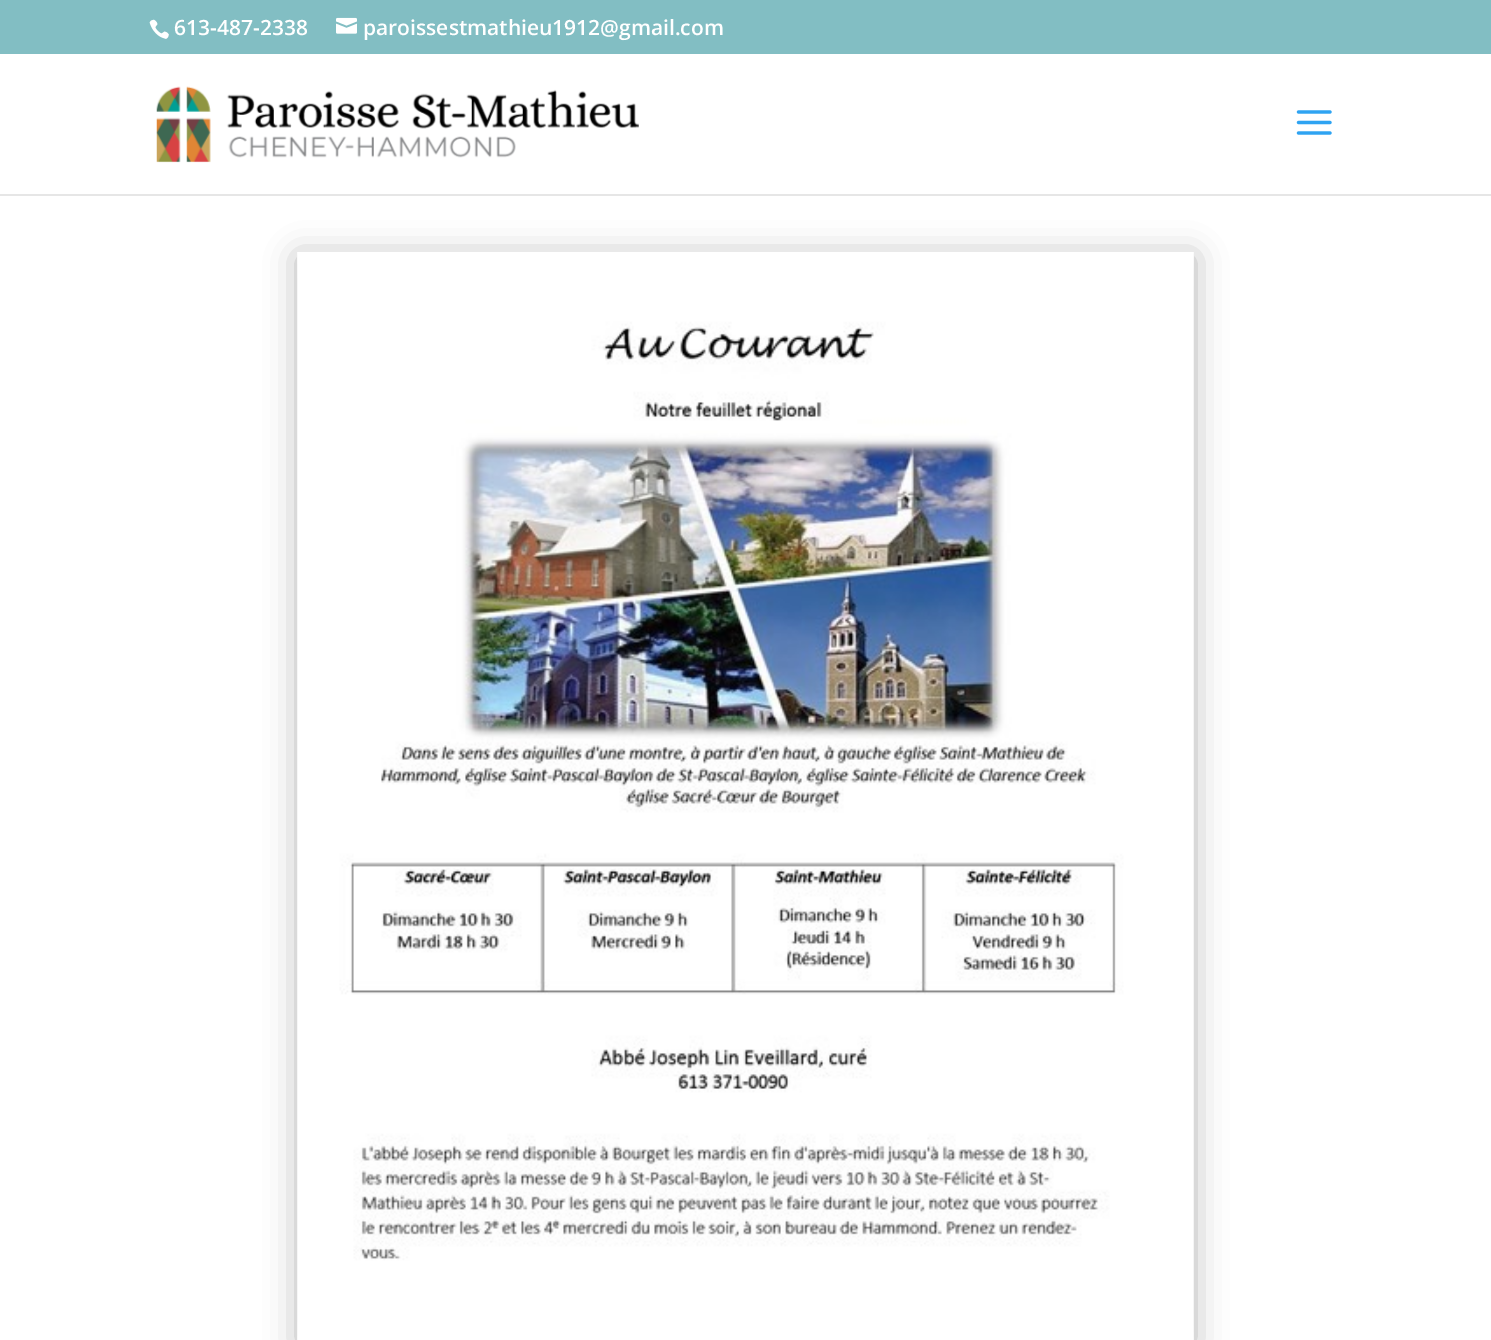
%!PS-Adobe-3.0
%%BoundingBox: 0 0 1491 1340
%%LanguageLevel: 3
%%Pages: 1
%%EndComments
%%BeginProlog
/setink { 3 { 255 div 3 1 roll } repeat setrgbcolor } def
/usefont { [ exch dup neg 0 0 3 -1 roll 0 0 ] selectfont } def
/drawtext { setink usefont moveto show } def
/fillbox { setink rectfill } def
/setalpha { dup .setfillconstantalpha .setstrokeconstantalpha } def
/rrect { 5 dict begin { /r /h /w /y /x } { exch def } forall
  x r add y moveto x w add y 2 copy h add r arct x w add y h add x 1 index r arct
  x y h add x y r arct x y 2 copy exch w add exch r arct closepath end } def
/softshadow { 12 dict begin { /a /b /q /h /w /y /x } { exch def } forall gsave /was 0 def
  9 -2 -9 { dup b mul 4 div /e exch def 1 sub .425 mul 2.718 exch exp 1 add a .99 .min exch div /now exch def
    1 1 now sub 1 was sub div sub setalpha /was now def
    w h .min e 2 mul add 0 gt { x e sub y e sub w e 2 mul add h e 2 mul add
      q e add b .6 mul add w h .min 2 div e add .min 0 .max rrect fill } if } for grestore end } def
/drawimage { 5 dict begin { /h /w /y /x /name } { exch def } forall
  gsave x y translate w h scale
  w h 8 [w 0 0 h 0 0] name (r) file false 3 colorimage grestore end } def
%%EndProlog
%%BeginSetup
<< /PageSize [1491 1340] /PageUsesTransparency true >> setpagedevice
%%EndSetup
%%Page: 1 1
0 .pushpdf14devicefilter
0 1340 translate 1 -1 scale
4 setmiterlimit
0 0 1491 1340 255 255 255 fillbox
0 0 1491 54 130 190 195 fillbox
(assets/img1.rgb) 149 19 20 20 drawimage
(613-487-2338) 174 35 /OpenSans-SemiBold 21 255 255 255 drawtext
(assets/img2.rgb) 336 17 21 17 drawimage
(paroissestmathieu1912@gmail.com) 363 35 /OpenSans-SemiBold 21 255 255 255 drawtext
0 194 1491 2 230 230 230 fillbox
(assets/img3.rgb) 156 86 483 77 drawimage
(assets/img4.rgb) 1296 110 36 25 drawimage
0 0 0 setink
298 256 896 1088 0 16 0.3 softshadow
(assets/img5.rgb) 297 252 897 1088 drawimage
.poppdf14devicefilter showpage
%%EOF
